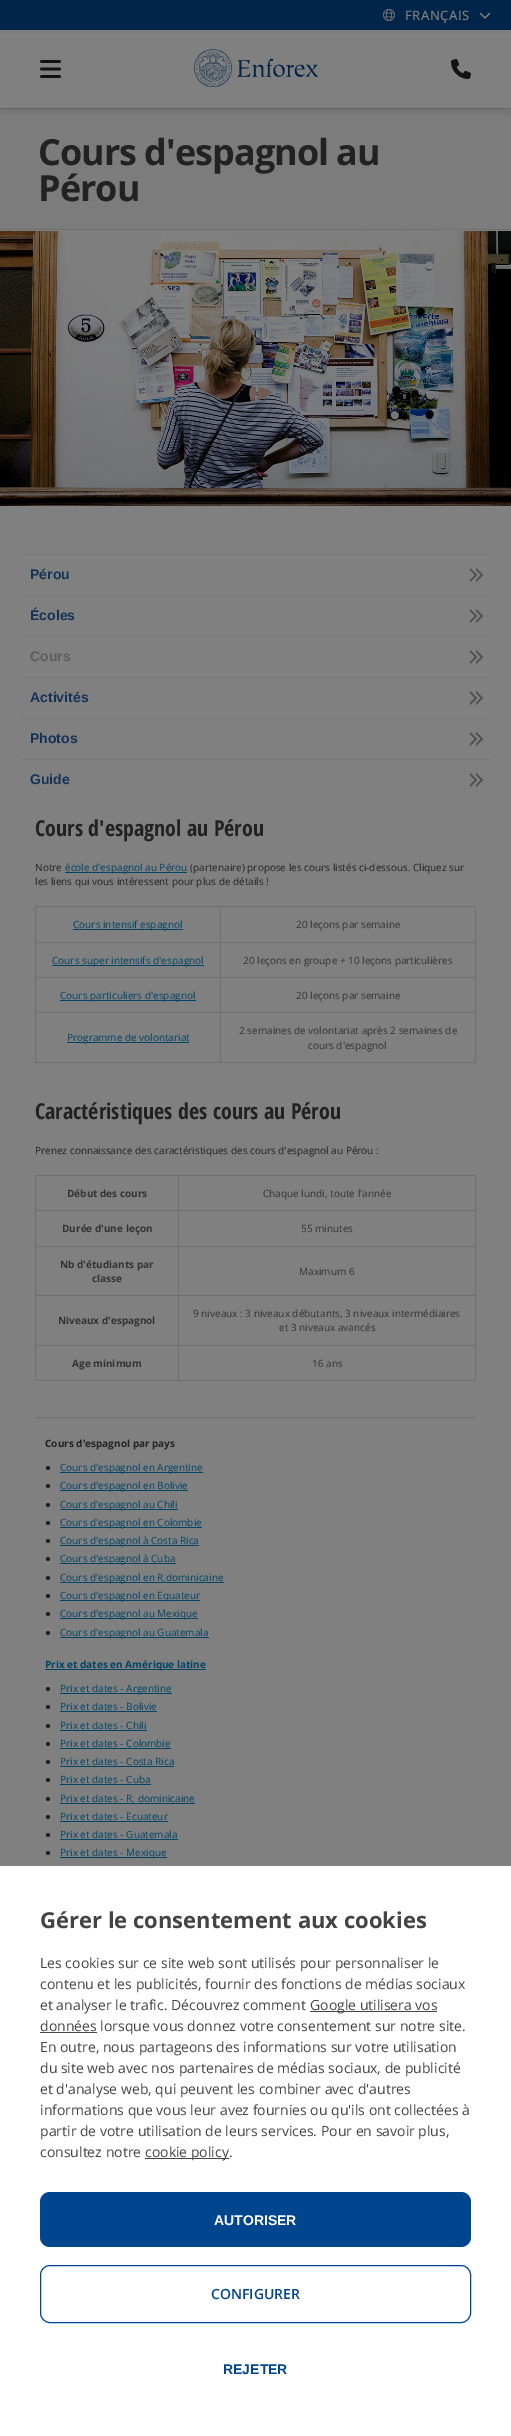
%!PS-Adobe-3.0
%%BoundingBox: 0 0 511 2436
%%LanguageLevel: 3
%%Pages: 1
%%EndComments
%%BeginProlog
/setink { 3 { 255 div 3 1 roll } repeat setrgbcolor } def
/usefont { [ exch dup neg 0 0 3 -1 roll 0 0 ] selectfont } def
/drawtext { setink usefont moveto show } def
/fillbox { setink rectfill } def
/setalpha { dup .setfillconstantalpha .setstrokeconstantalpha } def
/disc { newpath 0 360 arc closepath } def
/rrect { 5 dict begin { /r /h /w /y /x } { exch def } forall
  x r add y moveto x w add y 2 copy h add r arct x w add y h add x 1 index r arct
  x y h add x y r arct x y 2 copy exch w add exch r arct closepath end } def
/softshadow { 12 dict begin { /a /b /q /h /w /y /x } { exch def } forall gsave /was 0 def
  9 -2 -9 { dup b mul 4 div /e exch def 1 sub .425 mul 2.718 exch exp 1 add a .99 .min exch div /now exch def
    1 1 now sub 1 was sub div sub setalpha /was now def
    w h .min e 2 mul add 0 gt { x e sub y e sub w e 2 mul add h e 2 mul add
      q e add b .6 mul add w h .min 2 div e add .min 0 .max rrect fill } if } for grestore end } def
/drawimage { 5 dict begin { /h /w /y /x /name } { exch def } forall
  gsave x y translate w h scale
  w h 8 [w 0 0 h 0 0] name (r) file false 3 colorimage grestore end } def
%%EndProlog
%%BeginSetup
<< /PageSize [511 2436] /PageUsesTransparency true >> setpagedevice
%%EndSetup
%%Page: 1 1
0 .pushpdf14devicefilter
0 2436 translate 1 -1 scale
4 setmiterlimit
0 0 511 2436 128 128 128 fillbox
0 108 511 1 113 113 113 fillbox
0 0 511 30 0 37 72 fillbox
(assets/img1.rgb) 383 9 12 12 drawimage
/OpenSans-Medium 13 usefont
128 128 128 setink
405 20 moveto 0.5 0 (FRANÇAIS) ashow
(assets/img2.rgb) 479 12 12 7 drawimage
0 109 511 120 124 124 124 fillbox
0 0 0 setink
0 35 511 78 0 2.5 0.1 softshadow
0 33 511 75 128 128 128 fillbox
(assets/img3.rgb) 40 60 21 18 drawimage
(assets/img4.rgb) 194 49 124 38 drawimage
(assets/img5.rgb) 451 59 20 20 drawimage
(assets/img6.rgb) 0 229 511 2 drawimage
/OpenSans-Bold 36 usefont
34 34 34 setink
38 165 moveto -1 0 (Cours d'espagnol au) ashow
38 201 moveto -1 0 (Pérou) ashow
(assets/img7.rgb) 0 231 511 275 drawimage
(assets/img8.rgb) 470 568 13 14 drawimage
20 554 471 1 120 120 120 fillbox
(Pérou) 30 579 /LiberationSans-Bold 14 21 50 86 drawtext
(assets/img8.rgb) 470 609 13 14 drawimage
20 595 471 1 120 120 120 fillbox
(Écoles) 30 620 /LiberationSans-Bold 14 21 50 86 drawtext
(assets/img8.rgb) 470 650 13 14 drawimage
20 636 471 1 120 120 120 fillbox
(Cours) 30 661 /LiberationSans-Bold 14 93 93 93 drawtext
(assets/img8.rgb) 470 691 13 14 drawimage
20 677 471 1 120 120 120 fillbox
(Activités) 30 702 /LiberationSans-Bold 14 21 50 86 drawtext
(assets/img8.rgb) 470 732 13 14 drawimage
20 718 471 1 120 120 120 fillbox
(Photos) 30 743 /LiberationSans-Bold 14 21 50 86 drawtext
(assets/img8.rgb) 470 773 13 14 drawimage
20 759 471 1 120 120 120 fillbox
(Guide) 30 784 /LiberationSans-Bold 14 21 50 86 drawtext
(Cours d'espagnol au Pérou) 35 836 /OpenSansCondensed-Bold 22 34 34 34 drawtext
(Notre) 35 871 /OpenSans-Regular 10 34 34 34 drawtext
65 872 122 1 0 68 102 fillbox
(école d'espagnol au Pérou) 65 871 /OpenSans-Regular 10 0 68 102 drawtext
(\(partenaire\) propose les cours listés ci-dessous. Cliquez sur) 190 871 /OpenSans-Regular 10 34 34 34 drawtext
(les liens qui vous intéressent pour plus de détails !) 35 885 /OpenSans-Regular 10 34 34 34 drawtext
35 906 441 1 111 111 111 fillbox
475 906 1 157 111 111 111 fillbox
35 1062 441 1 111 111 111 fillbox
35 906 1 157 111 111 111 fillbox
73 929 110 1 0 68 102 fillbox
(Cours intensif espagnol) 73 928 /OpenSans-Regular 10 0 68 102 drawtext
220 942 256 1 111 111 111 fillbox
220 977 256 1 111 111 111 fillbox
220 1012 256 1 111 111 111 fillbox
220 1012 1 51 111 111 111 fillbox
35 1012 186 1 111 111 111 fillbox
220 977 1 36 111 111 111 fillbox
35 977 186 1 111 111 111 fillbox
220 942 1 36 111 111 111 fillbox
35 942 186 1 111 111 111 fillbox
220 906 1 37 111 111 111 fillbox
(20 leçons par semaine) 296 928 /OpenSans-Regular 10 51 51 51 drawtext
52 965 152 1 0 68 102 fillbox
(Cours super intensifs d'espagnol) 52 964 /OpenSans-Regular 10 0 68 102 drawtext
(20 leçons en groupe + 10 leçons particulières) 243 964 /OpenSans-Regular 10 51 51 51 drawtext
60 1000 136 1 0 68 102 fillbox
(Cours particuliers d'espagnol) 60 999 /OpenSans-Regular 10 0 68 102 drawtext
(20 leçons par semaine) 296 999 /OpenSans-Regular 10 51 51 51 drawtext
67 1042 122 1 0 68 102 fillbox
(Programme de volontariat) 67 1041 /OpenSans-Regular 10 0 68 102 drawtext
(2 semaines de volontariat après 2 semaines de) 239 1034 /OpenSans-Regular 10 51 51 51 drawtext
(cours d'espagnol) 308 1049 /OpenSans-Regular 10 51 51 51 drawtext
(Caractéristiques des cours au Pérou) 35 1119 /OpenSansCondensed-Bold 22 34 34 34 drawtext
(Prenez connaissance des caractéristiques des cours d'espagnol au Pérou :) 35 1154 /OpenSans-Regular 10 34 34 34 drawtext
35 1175 441 1 111 111 111 fillbox
475 1175 1 206 111 111 111 fillbox
35 1380 441 1 111 111 111 fillbox
35 1175 1 206 111 111 111 fillbox
(Début des cours) 67 1197 /OpenSans-Bold 10 51 51 51 drawtext
178 1210 298 1 111 111 111 fillbox
178 1246 298 1 111 111 111 fillbox
178 1295 298 1 111 111 111 fillbox
178 1345 298 1 111 111 111 fillbox
178 1345 1 36 111 111 111 fillbox
35 1345 144 1 111 111 111 fillbox
178 1295 1 51 111 111 111 fillbox
35 1295 144 1 111 111 111 fillbox
178 1246 1 50 111 111 111 fillbox
35 1246 144 1 111 111 111 fillbox
178 1210 1 37 111 111 111 fillbox
35 1210 144 1 111 111 111 fillbox
178 1175 1 36 111 111 111 fillbox
(Chaque lundi, toute l'année) 263 1197 /OpenSans-Regular 10 51 51 51 drawtext
(Durée d'une leçon) 62 1232 /OpenSans-Bold 10 51 51 51 drawtext
(55 minutes) 301 1232 /OpenSans-Regular 10 51 51 51 drawtext
(Nb d'étudiants par) 60 1268 /OpenSans-Bold 10 51 51 51 drawtext
(classe) 92 1282 /OpenSans-Bold 10 51 51 51 drawtext
(Maximum 6) 299 1275 /OpenSans-Regular 10 51 51 51 drawtext
(Niveaux d'espagnol) 58 1324 /OpenSans-Bold 10 51 51 51 drawtext
(9 niveaux : 3 niveaux débutants, 3 niveaux intermédiaires) 193 1317 /OpenSans-Regular 10 51 51 51 drawtext
(et 3 niveaux avancés) 279 1331 /OpenSans-Regular 10 51 51 51 drawtext
(Age minimum) 72 1367 /OpenSans-Bold 10 51 51 51 drawtext
(16 ans) 312 1367 /OpenSans-Regular 10 51 51 51 drawtext
102 102 102 setink
[1 1] 0 setdash
35 1417.5 moveto 476 1417.5 lineto stroke
(Cours d'espagnol par pays) 45 1447 /OpenSans-Bold 10 34 34 34 drawtext
48 1468 2 disc fill
60 1472 143 1 0 68 102 fillbox
(Cours d'espagnol en Argentine) 60 1471 /OpenSans-Regular 10 0 68 102 drawtext
34 34 34 setink
48 1486 2 disc fill
60 1490 128 1 0 68 102 fillbox
(Cours d'espagnol en Bolivie) 60 1489 /OpenSans-Regular 10 0 68 102 drawtext
34 34 34 setink
48 1505 2 disc fill
60 1509 118 1 0 68 102 fillbox
(Cours d'espagnol au Chili) 60 1508 /OpenSans-Regular 10 0 68 102 drawtext
34 34 34 setink
48 1523 2 disc fill
60 1527 142 1 0 68 102 fillbox
(Cours d'espagnol en Colombie) 60 1526 /OpenSans-Regular 10 0 68 102 drawtext
34 34 34 setink
48 1541 2 disc fill
60 1545 139 1 0 68 102 fillbox
(Cours d'espagnol à Costa Rica) 60 1544 /OpenSans-Regular 10 0 68 102 drawtext
34 34 34 setink
48 1559 2 disc fill
60 1563 116 1 0 68 102 fillbox
(Cours d'espagnol à Cuba) 60 1562 /OpenSans-Regular 10 0 68 102 drawtext
34 34 34 setink
48 1578 2 disc fill
60 1582 164 1 0 68 102 fillbox
(Cours d'espagnol en R.dominicaine) 60 1581 /OpenSans-Regular 10 0 68 102 drawtext
34 34 34 setink
48 1596 2 disc fill
60 1600 140 1 0 68 102 fillbox
(Cours d'espagnol en Equateur) 60 1599 /OpenSans-Regular 10 0 68 102 drawtext
34 34 34 setink
48 1614 2 disc fill
60 1618 138 1 0 68 102 fillbox
(Cours d'espagnol au Mexique) 60 1617 /OpenSans-Regular 10 0 68 102 drawtext
34 34 34 setink
48 1633 2 disc fill
60 1637 149 1 0 68 102 fillbox
(Cours d'espagnol au Guatemala) 60 1636 /OpenSans-Regular 10 0 68 102 drawtext
45 1669 161 1 0 68 102 fillbox
(Prix et dates en Amérique latine) 45 1668 /OpenSans-Bold 10 0 68 102 drawtext
34 34 34 setink
48 1689 2 disc fill
60 1693 112 1 0 68 102 fillbox
(Prix et dates - Argentine) 60 1692 /OpenSans-Regular 10 0 68 102 drawtext
34 34 34 setink
48 1707 2 disc fill
(Prix et dates - Bolivie) 60 1710 /OpenSans-Regular 10 0 68 102 drawtext
60 1711 97 1 0 68 102 fillbox
34 34 34 setink
48 1726 2 disc fill
(Prix et dates - Chili) 60 1729 /OpenSans-Regular 10 0 68 102 drawtext
60 1730 87 1 0 68 102 fillbox
34 34 34 setink
48 1744 2 disc fill
(Prix et dates - Colombie) 60 1747 /OpenSans-Regular 10 0 68 102 drawtext
60 1748 111 1 0 68 102 fillbox
34 34 34 setink
48 1762 2 disc fill
(Prix et dates - Costa Rica) 60 1765 /OpenSans-Regular 10 0 68 102 drawtext
60 1766 114 1 0 68 102 fillbox
34 34 34 setink
48 1780 2 disc fill
(Prix et dates - Cuba) 60 1783 /OpenSans-Regular 10 0 68 102 drawtext
60 1784 91 1 0 68 102 fillbox
34 34 34 setink
48 1799 2 disc fill
(Prix et dates - R. dominicaine) 60 1802 /OpenSans-Regular 10 0 68 102 drawtext
60 1803 135 1 0 68 102 fillbox
34 34 34 setink
48 1817 2 disc fill
(Prix et dates - Ecuateur) 60 1820 /OpenSans-Regular 10 0 68 102 drawtext
60 1821 108 1 0 68 102 fillbox
34 34 34 setink
48 1835 2 disc fill
(Prix et dates - Guatemala) 60 1838 /OpenSans-Regular 10 0 68 102 drawtext
60 1839 118 1 0 68 102 fillbox
34 34 34 setink
48 1853 2 disc fill
60 1857 107 1 0 68 102 fillbox
(Prix et dates - Mexique) 60 1856 /OpenSans-Regular 10 0 68 102 drawtext
0 1866 511 570 255 255 255 fillbox
(Gérer le consentement aux cookies) 40 1928 /OpenSans-Bold 22 68 68 68 drawtext
(Les cookies sur ce site web sont utilisés pour personnaliser le) 40 1968 /OpenSans-Regular 14 68 68 68 drawtext
(contenu et les publicités, fournir des fonctions de médias sociaux) 40 1989 /OpenSans-Regular 14 68 68 68 drawtext
(et analyser le trafic. Découvrez comment) 40 2010 /OpenSans-Regular 14 68 68 68 drawtext
310 2011 127 1 68 68 68 fillbox
(Google utilisera vos) 310 2010 /OpenSans-Regular 14 68 68 68 drawtext
40 2032 57 1 68 68 68 fillbox
(données lorsque vous donnez votre consentement sur notre site.) 40 2031 /OpenSans-Regular 14 68 68 68 drawtext
(En outre, nous partageons des informations sur votre utilisation) 40 2052 /OpenSans-Regular 14 68 68 68 drawtext
(du site web avec nos partenaires de médias sociaux, de publicité) 40 2073 /OpenSans-Regular 14 68 68 68 drawtext
(et d'analyse web, qui peuvent les combiner avec d'autres) 40 2094 /OpenSans-Regular 14 68 68 68 drawtext
(informations que vous leur avez fournies ou qu'ils ont collectées à) 40 2115 /OpenSans-Regular 14 68 68 68 drawtext
(partir de votre utilisation de leurs services. Pour en savoir plus,) 40 2136 /OpenSans-Regular 14 68 68 68 drawtext
(consultez notre) 40 2157 /OpenSans-Regular 14 68 68 68 drawtext
145 2158 84 1 68 68 68 fillbox
(cookie policy.) 145 2157 /OpenSans-Regular 14 68 68 68 drawtext
0 70 142 setink
40 2192 431 55 10 rrect fill
(AUTORISER) 214 2225 /LiberationSans-Bold 14 255 255 255 drawtext
0 70 142 setink
[] 0 setdash
40.5 2265.5 430 57 9.5 rrect stroke
(CONFIGURER) 211 2299 /OpenSans-SemiBold 14 0 70 142 drawtext
(REJETER) 223 2374 /LiberationSans-Bold 14 0 70 142 drawtext
.poppdf14devicefilter showpage
%%EOF
